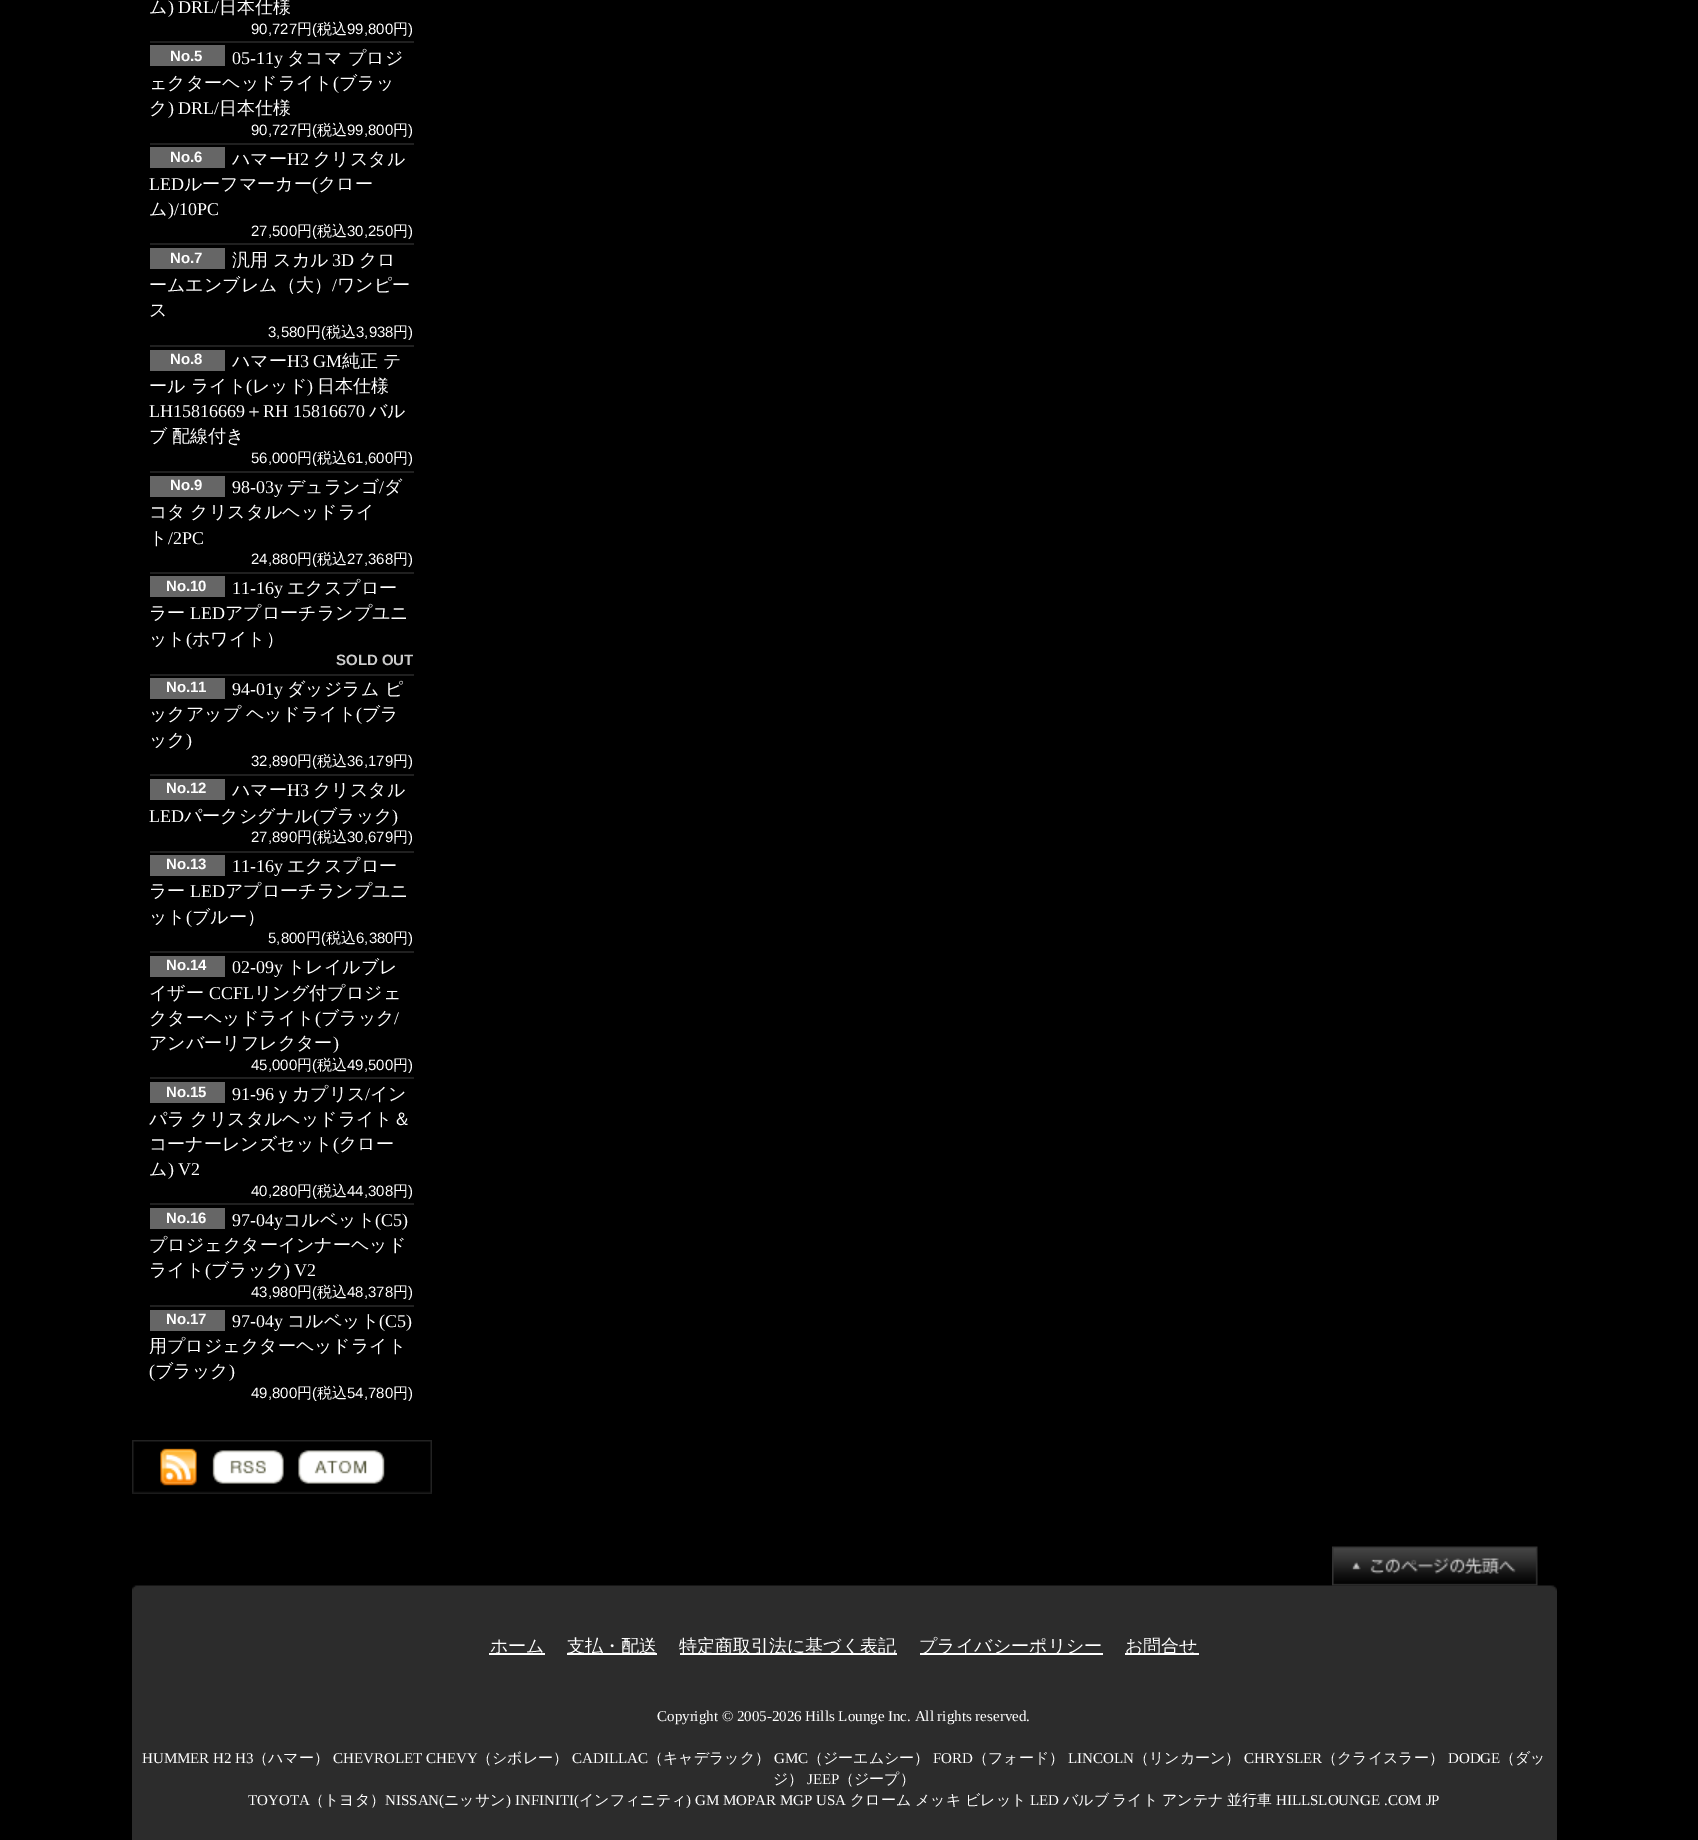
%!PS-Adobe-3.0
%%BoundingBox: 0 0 1698 1840
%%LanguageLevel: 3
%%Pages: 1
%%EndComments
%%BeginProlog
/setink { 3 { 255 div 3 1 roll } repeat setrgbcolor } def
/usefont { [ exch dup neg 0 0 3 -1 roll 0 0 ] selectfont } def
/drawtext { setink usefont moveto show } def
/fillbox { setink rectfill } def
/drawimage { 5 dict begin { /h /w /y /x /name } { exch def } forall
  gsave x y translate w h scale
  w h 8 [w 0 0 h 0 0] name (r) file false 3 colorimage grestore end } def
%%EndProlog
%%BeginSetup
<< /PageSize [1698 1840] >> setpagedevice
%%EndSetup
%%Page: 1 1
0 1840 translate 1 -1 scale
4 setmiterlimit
0 0 1698 1840 0 0 0 fillbox
(ム) 149 13 /WenQuanYiZenHei-Medium 18 255 255 255 drawtext
(\) DRL/) 168 13 /LiberationSerif-Regular 18 255 255 255 drawtext
(日本仕様) 219 13 /WenQuanYiZenHei-Medium 18 255 255 255 drawtext
(90,727) 251 34 /LiberationSans-Regular 15 255 255 255 drawtext
(円) 297 34 /WenQuanYiZenHei-Medium 15 255 255 255 drawtext
(\() 312 34 /LiberationSans-Regular 15 255 255 255 drawtext
(税込) 317 34 /WenQuanYiZenHei-Medium 15 255 255 255 drawtext
(99,800) 347 34 /LiberationSans-Regular 15 255 255 255 drawtext
(円) 393 34 /WenQuanYiZenHei-Medium 15 255 255 255 drawtext
(\)) 408 34 /LiberationSans-Regular 15 255 255 255 drawtext
150 41 264 2 32 32 32 fillbox
150 45 75 21 102 102 102 fillbox
(No.5) 170 61 /LiberationSans-Bold 15 255 255 255 drawtext
(05-11y) 232 64 /LiberationSerif-Regular 18 255 255 255 drawtext
(タコマ プロジ) 287 64 /WenQuanYiZenHei-Medium 18 255 255 255 drawtext
(ェクターヘッドライト) 149 89 /WenQuanYiZenHei-Medium 18 255 255 255 drawtext
(\() 333 89 /LiberationSerif-Regular 18 255 255 255 drawtext
(ブラッ) 339 89 /WenQuanYiZenHei-Medium 18 255 255 255 drawtext
(ク) 149 114 /WenQuanYiZenHei-Medium 18 255 255 255 drawtext
(\) DRL/) 168 114 /LiberationSerif-Regular 18 255 255 255 drawtext
(日本仕様) 219 114 /WenQuanYiZenHei-Medium 18 255 255 255 drawtext
(90,727) 251 135 /LiberationSans-Regular 15 255 255 255 drawtext
(円) 297 135 /WenQuanYiZenHei-Medium 15 255 255 255 drawtext
(\() 312 135 /LiberationSans-Regular 15 255 255 255 drawtext
(税込) 317 135 /WenQuanYiZenHei-Medium 15 255 255 255 drawtext
(99,800) 347 135 /LiberationSans-Regular 15 255 255 255 drawtext
(円) 393 135 /WenQuanYiZenHei-Medium 15 255 255 255 drawtext
(\)) 408 135 /LiberationSans-Regular 15 255 255 255 drawtext
150 143 264 2 32 32 32 fillbox
150 147 75 21 102 102 102 fillbox
(No.6) 170 162 /LiberationSans-Bold 15 255 255 255 drawtext
(ハマー) 232 165 /WenQuanYiZenHei-Medium 18 255 255 255 drawtext
(H2) 287 165 /LiberationSerif-Regular 18 255 255 255 drawtext
(クリスタル) 313 165 /WenQuanYiZenHei-Medium 18 255 255 255 drawtext
(LED) 149 190 /LiberationSerif-Regular 18 255 255 255 drawtext
(ルーフマーカー) 184 190 /WenQuanYiZenHei-Medium 18 255 255 255 drawtext
(\() 312 190 /LiberationSerif-Regular 18 255 255 255 drawtext
(クロー) 318 190 /WenQuanYiZenHei-Medium 18 255 255 255 drawtext
(ム) 149 215 /WenQuanYiZenHei-Medium 18 255 255 255 drawtext
(\)/10PC) 168 215 /LiberationSerif-Regular 18 255 255 255 drawtext
(27,500) 251 236 /LiberationSans-Regular 15 255 255 255 drawtext
(円) 297 236 /WenQuanYiZenHei-Medium 15 255 255 255 drawtext
(\() 312 236 /LiberationSans-Regular 15 255 255 255 drawtext
(税込) 317 236 /WenQuanYiZenHei-Medium 15 255 255 255 drawtext
(30,250) 347 236 /LiberationSans-Regular 15 255 255 255 drawtext
(円) 393 236 /WenQuanYiZenHei-Medium 15 255 255 255 drawtext
(\)) 408 236 /LiberationSans-Regular 15 255 255 255 drawtext
150 243 264 2 32 32 32 fillbox
150 248 75 21 102 102 102 fillbox
(No.7) 170 263 /LiberationSans-Bold 15 255 255 255 drawtext
(汎用 スカル) 232 266 /WenQuanYiZenHei-Medium 18 255 255 255 drawtext
(3D) 332 266 /LiberationSerif-Regular 18 255 255 255 drawtext
(クロ) 359 266 /WenQuanYiZenHei-Medium 18 255 255 255 drawtext
(ームエンブレム（大）) 149 291 /WenQuanYiZenHei-Medium 18 255 255 255 drawtext
(/) 332 291 /LiberationSerif-Regular 18 255 255 255 drawtext
(ワンピー) 337 291 /WenQuanYiZenHei-Medium 18 255 255 255 drawtext
(ス) 149 316 /WenQuanYiZenHei-Medium 18 255 255 255 drawtext
(3,580) 268 337 /LiberationSans-Regular 15 255 255 255 drawtext
(円) 306 337 /WenQuanYiZenHei-Medium 15 255 255 255 drawtext
(\() 321 337 /LiberationSans-Regular 15 255 255 255 drawtext
(税込) 326 337 /WenQuanYiZenHei-Medium 15 255 255 255 drawtext
(3,938) 356 337 /LiberationSans-Regular 15 255 255 255 drawtext
(円) 393 337 /WenQuanYiZenHei-Medium 15 255 255 255 drawtext
(\)) 408 337 /LiberationSans-Regular 15 255 255 255 drawtext
150 345 264 2 32 32 32 fillbox
150 350 75 21 102 102 102 fillbox
(No.8) 170 364 /LiberationSans-Bold 15 255 255 255 drawtext
(ハマー) 232 367 /WenQuanYiZenHei-Medium 18 255 255 255 drawtext
(H3 GM) 287 367 /LiberationSerif-Regular 18 255 255 255 drawtext
(純正) 342 367 /WenQuanYiZenHei-Medium 18 255 255 255 drawtext
(テ) 383 367 /WenQuanYiZenHei-Medium 18 255 255 255 drawtext
(ール ライト) 149 392 /WenQuanYiZenHei-Medium 18 255 255 255 drawtext
(\() 246 392 /LiberationSerif-Regular 18 255 255 255 drawtext
(レッド) 252 392 /WenQuanYiZenHei-Medium 18 255 255 255 drawtext
(\)) 307 392 /LiberationSerif-Regular 18 255 255 255 drawtext
(日本仕様) 317 392 /WenQuanYiZenHei-Medium 18 255 255 255 drawtext
(LH15816669) 149 417 /LiberationSerif-Regular 18 255 255 255 drawtext
(＋) 245 417 /WenQuanYiZenHei-Medium 18 255 255 255 drawtext
(RH 15816670) 263 417 /LiberationSerif-Regular 18 255 255 255 drawtext
(バル) 369 417 /WenQuanYiZenHei-Medium 18 255 255 255 drawtext
149 442 moveto -1 0 32 (ブ 配線付き) widthshow
(56,000) 251 463 /LiberationSans-Regular 15 255 255 255 drawtext
(円) 297 463 /WenQuanYiZenHei-Medium 15 255 255 255 drawtext
(\() 312 463 /LiberationSans-Regular 15 255 255 255 drawtext
(税込) 317 463 /WenQuanYiZenHei-Medium 15 255 255 255 drawtext
(61,600) 347 463 /LiberationSans-Regular 15 255 255 255 drawtext
(円) 393 463 /WenQuanYiZenHei-Medium 15 255 255 255 drawtext
(\)) 408 463 /LiberationSans-Regular 15 255 255 255 drawtext
150 471 264 2 32 32 32 fillbox
150 476 75 21 102 102 102 fillbox
(No.9) 170 490 /LiberationSans-Bold 15 255 255 255 drawtext
(98-03y) 232 493 /LiberationSerif-Regular 18 255 255 255 drawtext
(デュランゴ) 287 493 /WenQuanYiZenHei-Medium 18 255 255 255 drawtext
(/) 379 493 /LiberationSerif-Regular 18 255 255 255 drawtext
(ダ) 384 493 /WenQuanYiZenHei-Medium 18 255 255 255 drawtext
149 518 moveto -1 0 32 (コタ クリスタルヘッドライ) widthshow
(ト) 149 544 /WenQuanYiZenHei-Medium 18 255 255 255 drawtext
(/2PC) 168 544 /LiberationSerif-Regular 18 255 255 255 drawtext
(24,880) 251 564 /LiberationSans-Regular 15 255 255 255 drawtext
(円) 297 564 /WenQuanYiZenHei-Medium 15 255 255 255 drawtext
(\() 312 564 /LiberationSans-Regular 15 255 255 255 drawtext
(税込) 317 564 /WenQuanYiZenHei-Medium 15 255 255 255 drawtext
(27,368) 347 564 /LiberationSans-Regular 15 255 255 255 drawtext
(円) 393 564 /WenQuanYiZenHei-Medium 15 255 255 255 drawtext
(\)) 408 564 /LiberationSans-Regular 15 255 255 255 drawtext
150 572 264 2 32 32 32 fillbox
150 576 75 21 102 102 102 fillbox
(No.10) 166 591 /LiberationSans-Bold 15 255 255 255 drawtext
(11-16y) 232 594 /LiberationSerif-Regular 18 255 255 255 drawtext
(エクスプロー) 287 594 /WenQuanYiZenHei-Medium 18 255 255 255 drawtext
(ラー) 149 619 /WenQuanYiZenHei-Medium 18 255 255 255 drawtext
(LED) 190 619 /LiberationSerif-Regular 18 255 255 255 drawtext
(アプローチランプユニ) 225 619 /WenQuanYiZenHei-Medium 18 255 255 255 drawtext
(ット) 149 645 /WenQuanYiZenHei-Medium 18 255 255 255 drawtext
(\() 186 645 /LiberationSerif-Regular 18 255 255 255 drawtext
(ホワイト）) 192 645 /WenQuanYiZenHei-Medium 18 255 255 255 drawtext
(SOLD OUT) 336 665 /LiberationSans-Bold 15 204 204 204 drawtext
150 674 264 2 32 32 32 fillbox
150 678 75 21 102 102 102 fillbox
(No.11) 166 692 /LiberationSans-Bold 15 255 255 255 drawtext
(94-01y) 232 695 /LiberationSerif-Regular 18 255 255 255 drawtext
(ダッジラム ピ) 287 695 /WenQuanYiZenHei-Medium 18 255 255 255 drawtext
149 720 moveto -1 0 32 (ックアップ ヘッドライト) widthshow
(\() 356 720 /LiberationSerif-Regular 18 255 255 255 drawtext
(ブラ) 362 720 /WenQuanYiZenHei-Medium 18 255 255 255 drawtext
(ック) 149 746 /WenQuanYiZenHei-Medium 18 255 255 255 drawtext
(\)) 186 746 /LiberationSerif-Regular 18 255 255 255 drawtext
(32,890) 251 766 /LiberationSans-Regular 15 255 255 255 drawtext
(円) 297 766 /WenQuanYiZenHei-Medium 15 255 255 255 drawtext
(\() 312 766 /LiberationSans-Regular 15 255 255 255 drawtext
(税込) 317 766 /WenQuanYiZenHei-Medium 15 255 255 255 drawtext
(36,179) 347 766 /LiberationSans-Regular 15 255 255 255 drawtext
(円) 393 766 /WenQuanYiZenHei-Medium 15 255 255 255 drawtext
(\)) 408 766 /LiberationSans-Regular 15 255 255 255 drawtext
150 774 264 2 32 32 32 fillbox
150 779 75 21 102 102 102 fillbox
(No.12) 166 793 /LiberationSans-Bold 15 255 255 255 drawtext
(ハマー) 232 796 /WenQuanYiZenHei-Medium 18 255 255 255 drawtext
(H3) 287 796 /LiberationSerif-Regular 18 255 255 255 drawtext
(クリスタル) 313 796 /WenQuanYiZenHei-Medium 18 255 255 255 drawtext
(LED) 149 822 /LiberationSerif-Regular 18 255 255 255 drawtext
(パークシグナル) 184 822 /WenQuanYiZenHei-Medium 18 255 255 255 drawtext
(\() 313 822 /LiberationSerif-Regular 18 255 255 255 drawtext
(ブラック) 319 822 /WenQuanYiZenHei-Medium 18 255 255 255 drawtext
(\)) 392 822 /LiberationSerif-Regular 18 255 255 255 drawtext
(27,890) 251 842 /LiberationSans-Regular 15 255 255 255 drawtext
(円) 297 842 /WenQuanYiZenHei-Medium 15 255 255 255 drawtext
(\() 312 842 /LiberationSans-Regular 15 255 255 255 drawtext
(税込) 317 842 /WenQuanYiZenHei-Medium 15 255 255 255 drawtext
(30,679) 347 842 /LiberationSans-Regular 15 255 255 255 drawtext
(円) 393 842 /WenQuanYiZenHei-Medium 15 255 255 255 drawtext
(\)) 408 842 /LiberationSans-Regular 15 255 255 255 drawtext
150 851 264 2 32 32 32 fillbox
150 855 75 21 102 102 102 fillbox
(No.13) 166 869 /LiberationSans-Bold 15 255 255 255 drawtext
(11-16y) 232 872 /LiberationSerif-Regular 18 255 255 255 drawtext
(エクスプロー) 287 872 /WenQuanYiZenHei-Medium 18 255 255 255 drawtext
(ラー) 149 897 /WenQuanYiZenHei-Medium 18 255 255 255 drawtext
(LED) 190 897 /LiberationSerif-Regular 18 255 255 255 drawtext
(アプローチランプユニ) 225 897 /WenQuanYiZenHei-Medium 18 255 255 255 drawtext
(ット) 149 923 /WenQuanYiZenHei-Medium 18 255 255 255 drawtext
(\() 186 923 /LiberationSerif-Regular 18 255 255 255 drawtext
(ブルー）) 192 923 /WenQuanYiZenHei-Medium 18 255 255 255 drawtext
(5,800) 268 943 /LiberationSans-Regular 15 255 255 255 drawtext
(円) 306 943 /WenQuanYiZenHei-Medium 15 255 255 255 drawtext
(\() 321 943 /LiberationSans-Regular 15 255 255 255 drawtext
(税込) 326 943 /WenQuanYiZenHei-Medium 15 255 255 255 drawtext
(6,380) 356 943 /LiberationSans-Regular 15 255 255 255 drawtext
(円) 393 943 /WenQuanYiZenHei-Medium 15 255 255 255 drawtext
(\)) 408 943 /LiberationSans-Regular 15 255 255 255 drawtext
150 951 264 2 32 32 32 fillbox
150 956 75 21 102 102 102 fillbox
(No.14) 166 970 /LiberationSans-Bold 15 255 255 255 drawtext
(02-09y) 232 973 /LiberationSerif-Regular 18 255 255 255 drawtext
(トレイルブレ) 287 973 /WenQuanYiZenHei-Medium 18 255 255 255 drawtext
(イザー) 149 999 /WenQuanYiZenHei-Medium 18 255 255 255 drawtext
(CCFL) 209 999 /LiberationSerif-Regular 18 255 255 255 drawtext
(リング付プロジェ) 254 999 /WenQuanYiZenHei-Medium 18 255 255 255 drawtext
(クターヘッドライト) 149 1024 /WenQuanYiZenHei-Medium 18 255 255 255 drawtext
(\() 315 1024 /LiberationSerif-Regular 18 255 255 255 drawtext
(ブラック) 321 1024 /WenQuanYiZenHei-Medium 18 255 255 255 drawtext
(/) 394 1024 /LiberationSerif-Regular 18 255 255 255 drawtext
(アンバーリフレクター) 149 1049 /WenQuanYiZenHei-Medium 18 255 255 255 drawtext
(\)) 333 1049 /LiberationSerif-Regular 18 255 255 255 drawtext
(45,000) 251 1070 /LiberationSans-Regular 15 255 255 255 drawtext
(円) 297 1070 /WenQuanYiZenHei-Medium 15 255 255 255 drawtext
(\() 312 1070 /LiberationSans-Regular 15 255 255 255 drawtext
(税込) 317 1070 /WenQuanYiZenHei-Medium 15 255 255 255 drawtext
(49,500) 347 1070 /LiberationSans-Regular 15 255 255 255 drawtext
(円) 393 1070 /WenQuanYiZenHei-Medium 15 255 255 255 drawtext
(\)) 408 1070 /LiberationSans-Regular 15 255 255 255 drawtext
150 1077 264 2 32 32 32 fillbox
150 1082 75 21 102 102 102 fillbox
(No.15) 166 1097 /LiberationSans-Bold 15 255 255 255 drawtext
(91-96) 232 1100 /LiberationSerif-Regular 18 255 255 255 drawtext
(ｙカプリス) 274 1100 /WenQuanYiZenHei-Medium 18 255 255 255 drawtext
(/) 365 1100 /LiberationSerif-Regular 18 255 255 255 drawtext
(イン) 370 1100 /WenQuanYiZenHei-Medium 18 255 255 255 drawtext
149 1125 moveto -1 0 32 (パラ クリスタルヘッドライト＆) widthshow
(コーナーレンズセット) 149 1150 /WenQuanYiZenHei-Medium 18 255 255 255 drawtext
(\() 333 1150 /LiberationSerif-Regular 18 255 255 255 drawtext
(クロー) 339 1150 /WenQuanYiZenHei-Medium 18 255 255 255 drawtext
(ム) 149 1175 /WenQuanYiZenHei-Medium 18 255 255 255 drawtext
(\) V2) 168 1175 /LiberationSerif-Regular 18 255 255 255 drawtext
(40,280) 251 1196 /LiberationSans-Regular 15 255 255 255 drawtext
(円) 297 1196 /WenQuanYiZenHei-Medium 15 255 255 255 drawtext
(\() 312 1196 /LiberationSans-Regular 15 255 255 255 drawtext
(税込) 317 1196 /WenQuanYiZenHei-Medium 15 255 255 255 drawtext
(44,308) 347 1196 /LiberationSans-Regular 15 255 255 255 drawtext
(円) 393 1196 /WenQuanYiZenHei-Medium 15 255 255 255 drawtext
(\)) 408 1196 /LiberationSans-Regular 15 255 255 255 drawtext
150 1203 264 2 32 32 32 fillbox
150 1208 75 21 102 102 102 fillbox
(No.16) 166 1223 /LiberationSans-Bold 15 255 255 255 drawtext
(97-04y) 232 1226 /LiberationSerif-Regular 18 255 255 255 drawtext
(コルベット) 283 1226 /WenQuanYiZenHei-Medium 18 255 255 255 drawtext
(\(C5\)) 375 1226 /LiberationSerif-Regular 18 255 255 255 drawtext
(プロジェクターインナーヘッド) 149 1251 /WenQuanYiZenHei-Medium 18 255 255 255 drawtext
(ライト) 149 1276 /WenQuanYiZenHei-Medium 18 255 255 255 drawtext
(\() 205 1276 /LiberationSerif-Regular 18 255 255 255 drawtext
(ブラック) 211 1276 /WenQuanYiZenHei-Medium 18 255 255 255 drawtext
(\) V2) 284 1276 /LiberationSerif-Regular 18 255 255 255 drawtext
(43,980) 251 1297 /LiberationSans-Regular 15 255 255 255 drawtext
(円) 297 1297 /WenQuanYiZenHei-Medium 15 255 255 255 drawtext
(\() 312 1297 /LiberationSans-Regular 15 255 255 255 drawtext
(税込) 317 1297 /WenQuanYiZenHei-Medium 15 255 255 255 drawtext
(48,378) 347 1297 /LiberationSans-Regular 15 255 255 255 drawtext
(円) 393 1297 /WenQuanYiZenHei-Medium 15 255 255 255 drawtext
(\)) 408 1297 /LiberationSans-Regular 15 255 255 255 drawtext
150 1305 264 2 32 32 32 fillbox
150 1310 75 21 102 102 102 fillbox
(No.17) 166 1324 /LiberationSans-Bold 15 255 255 255 drawtext
(97-04y) 232 1327 /LiberationSerif-Regular 18 255 255 255 drawtext
(コルベット) 287 1327 /WenQuanYiZenHei-Medium 18 255 255 255 drawtext
(\(C5\)) 379 1327 /LiberationSerif-Regular 18 255 255 255 drawtext
(用プロジェクターヘッドライト) 149 1352 /WenQuanYiZenHei-Medium 18 255 255 255 drawtext
(\() 149 1377 /LiberationSerif-Regular 18 255 255 255 drawtext
(ブラック) 155 1377 /WenQuanYiZenHei-Medium 18 255 255 255 drawtext
(\)) 229 1377 /LiberationSerif-Regular 18 255 255 255 drawtext
(49,800) 251 1398 /LiberationSans-Regular 15 255 255 255 drawtext
(円) 297 1398 /WenQuanYiZenHei-Medium 15 255 255 255 drawtext
(\() 312 1398 /LiberationSans-Regular 15 255 255 255 drawtext
(税込) 317 1398 /WenQuanYiZenHei-Medium 15 255 255 255 drawtext
(54,780) 347 1398 /LiberationSans-Regular 15 255 255 255 drawtext
(円) 393 1398 /WenQuanYiZenHei-Medium 15 255 255 255 drawtext
(\)) 408 1398 /LiberationSans-Regular 15 255 255 255 drawtext
(assets/img1.rgb) 132 1440 300 54 drawimage
132 1591 1425 249 44 44 44 fillbox
(assets/img2.rgb) 132 1547 1425 44 drawimage
(assets/img3.rgb) 1332 1546 206 40 drawimage
489 1653 56 2 255 255 255 fillbox
(ホーム) 490 1652 /WenQuanYiZenHei-Medium 18 255 255 255 drawtext
567 1653 90 2 255 255 255 fillbox
(支払・配送) 567 1652 /WenQuanYiZenHei-Medium 18 255 255 255 drawtext
680 1653 217 2 255 255 255 fillbox
(特定商取引法に基づく表記) 679 1652 /WenQuanYiZenHei-Medium 18 255 255 255 drawtext
920 1653 183 2 255 255 255 fillbox
(プライバシーポリシー) 919 1652 /WenQuanYiZenHei-Medium 18 255 255 255 drawtext
1125 1653 74 2 255 255 255 fillbox
(お問合せ) 1125 1652 /WenQuanYiZenHei-Medium 18 255 255 255 drawtext
(Copyright © 2005-2026 Hills Lounge Inc. All rights reserved.) 657 1721 /LiberationSerif-Regular 15 255 255 255 drawtext
(HUMMER H2 H3) 142 1763 /LiberationSerif-Regular 15 255 255 255 drawtext
(（ハマー）) 253 1763 /WenQuanYiZenHei-Medium 15 255 255 255 drawtext
(CHEVROLET CHEVY) 333 1763 /LiberationSerif-Regular 15 255 255 255 drawtext
(（シボレー）) 477 1763 /WenQuanYiZenHei-Medium 15 255 255 255 drawtext
(CADILLAC) 572 1763 /LiberationSerif-Regular 15 255 255 255 drawtext
(（キャデラック）) 648 1763 /WenQuanYiZenHei-Medium 15 255 255 255 drawtext
(GMC) 774 1763 /LiberationSerif-Regular 15 255 255 255 drawtext
(（ジーエムシー）) 808 1763 /WenQuanYiZenHei-Medium 15 255 255 255 drawtext
(FORD) 933 1763 /LiberationSerif-Regular 15 255 255 255 drawtext
(（フォード）) 973 1763 /WenQuanYiZenHei-Medium 15 255 255 255 drawtext
(LINCOLN) 1068 1763 /LiberationSerif-Regular 15 255 255 255 drawtext
(（リンカーン）) 1134 1763 /WenQuanYiZenHei-Medium 15 255 255 255 drawtext
(CHRYSLER) 1244 1763 /LiberationSerif-Regular 15 255 255 255 drawtext
(（クライスラー）) 1322 1763 /WenQuanYiZenHei-Medium 15 255 255 255 drawtext
(DODGE) 1448 1763 /LiberationSerif-Regular 15 255 255 255 drawtext
(（ダッ) 1500 1763 /WenQuanYiZenHei-Medium 15 255 255 255 drawtext
(ジ）) 773 1784 /WenQuanYiZenHei-Medium 15 255 255 255 drawtext
(JEEP) 807 1784 /LiberationSerif-Regular 15 255 255 255 drawtext
(（ジープ）) 839 1784 /WenQuanYiZenHei-Medium 15 255 255 255 drawtext
(TOYOTA) 248 1805 /LiberationSerif-Regular 15 255 255 255 drawtext
(（トヨタ）) 309 1805 /WenQuanYiZenHei-Medium 15 255 255 255 drawtext
(NISSAN\() 385 1805 /LiberationSerif-Regular 15 255 255 255 drawtext
(ニッサン) 444 1805 /WenQuanYiZenHei-Medium 15 255 255 255 drawtext
(\) INFINITI\() 506 1805 /LiberationSerif-Regular 15 255 255 255 drawtext
(インフィニティ) 579 1805 /WenQuanYiZenHei-Medium 15 255 255 255 drawtext
(\) GM MOPAR MGP USA) 686 1805 /LiberationSerif-Regular 15 255 255 255 drawtext
(クローム) 850 1805 /WenQuanYiZenHei-Medium 15 255 255 255 drawtext
(メッキ) 915 1805 /WenQuanYiZenHei-Medium 15 255 255 255 drawtext
(ビレット) 965 1805 /WenQuanYiZenHei-Medium 15 255 255 255 drawtext
(LED) 1030 1805 /LiberationSerif-Regular 15 255 255 255 drawtext
(バルブ) 1063 1805 /WenQuanYiZenHei-Medium 15 255 255 255 drawtext
(ライト) 1112 1805 /WenQuanYiZenHei-Medium 15 255 255 255 drawtext
(アンテナ) 1162 1805 /WenQuanYiZenHei-Medium 15 255 255 255 drawtext
(並行車) 1227 1805 /WenQuanYiZenHei-Medium 15 255 255 255 drawtext
(HILLSLOUNGE .COM JP) 1276 1805 /LiberationSerif-Regular 15 255 255 255 drawtext
showpage
%%EOF
